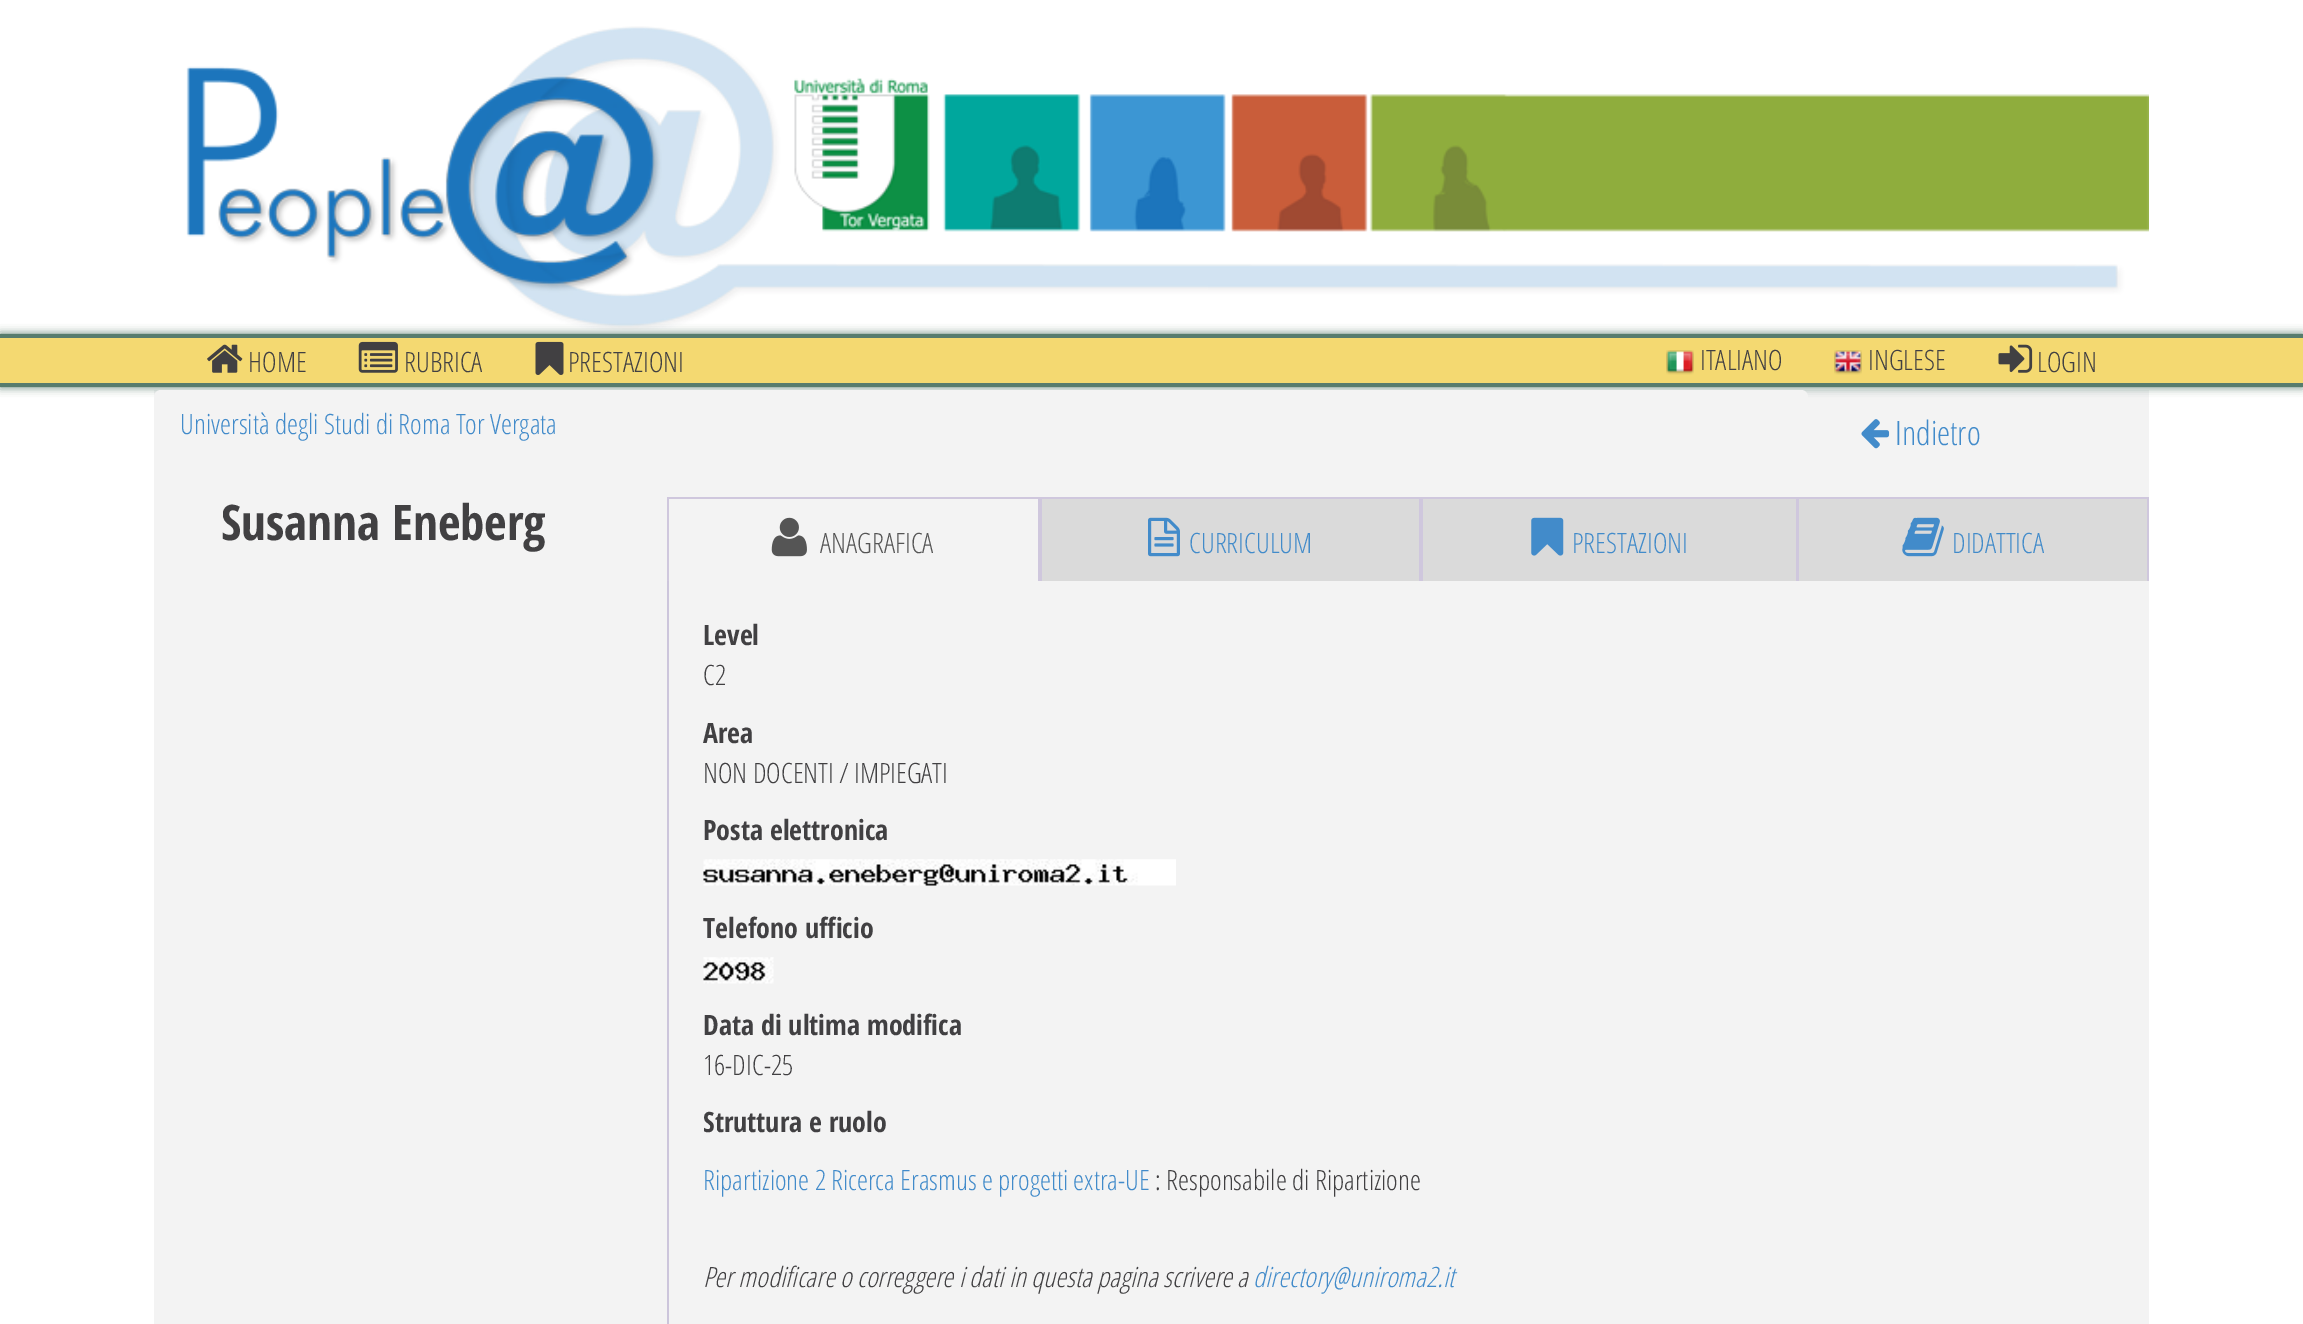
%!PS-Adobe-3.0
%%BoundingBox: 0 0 2303 1324
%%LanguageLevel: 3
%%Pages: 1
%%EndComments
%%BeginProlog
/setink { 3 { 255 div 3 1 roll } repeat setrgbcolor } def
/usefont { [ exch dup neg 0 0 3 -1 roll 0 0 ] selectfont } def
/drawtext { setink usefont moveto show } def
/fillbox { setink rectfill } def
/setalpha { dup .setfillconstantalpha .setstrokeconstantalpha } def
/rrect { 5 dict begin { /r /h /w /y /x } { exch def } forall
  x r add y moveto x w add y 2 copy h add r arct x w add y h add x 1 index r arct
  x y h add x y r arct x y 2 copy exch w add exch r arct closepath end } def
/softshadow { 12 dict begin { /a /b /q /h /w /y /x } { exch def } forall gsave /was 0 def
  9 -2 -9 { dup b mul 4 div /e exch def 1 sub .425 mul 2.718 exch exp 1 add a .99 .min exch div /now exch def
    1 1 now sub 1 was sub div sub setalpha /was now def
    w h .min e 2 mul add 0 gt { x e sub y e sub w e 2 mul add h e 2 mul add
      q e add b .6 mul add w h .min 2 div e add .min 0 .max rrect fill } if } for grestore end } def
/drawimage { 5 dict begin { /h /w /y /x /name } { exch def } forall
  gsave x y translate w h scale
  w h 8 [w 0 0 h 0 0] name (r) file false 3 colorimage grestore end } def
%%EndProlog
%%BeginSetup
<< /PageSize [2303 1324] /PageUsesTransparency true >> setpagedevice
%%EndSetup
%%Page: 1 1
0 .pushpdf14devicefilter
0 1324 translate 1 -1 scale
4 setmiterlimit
0 0 2303 1324 255 255 255 fillbox
(assets/img1.rgb) 186 26 1963 304 drawimage
154 390 1995 934 243 243 243 fillbox
87 124 109 setink
0 334 2303 53 0 4.5 1 softshadow
0 338 2303 45 244 217 113 fillbox
0 334 2303 4 87 124 109 fillbox
0 383 2303 4 87 124 109 fillbox
(assets/img2.rgb) 207 344 36 29 drawimage
(HOME) 248 372 /OpenSans-Light 28 65 64 66 drawtext
(assets/img3.rgb) 358 341 40 32 drawimage
(RUBRICA) 404 372 /OpenSans-Light 28 65 64 66 drawtext
(assets/img4.rgb) 535 341 29 34 drawimage
(PRESTAZIONI) 568 372 /OpenSans-Light 28 65 64 66 drawtext
(assets/img5.rgb) 1666 350 28 25 drawimage
(ITALIANO) 1700 370 /OpenSans-Light 28 65 64 66 drawtext
(assets/img6.rgb) 1834 350 28 25 drawimage
(INGLESE) 1868 370 /OpenSans-Light 28 65 64 66 drawtext
(assets/img7.rgb) 1998 344 35 29 drawimage
(LOGIN) 2037 372 /OpenSans-Light 28 65 64 66 drawtext
243 243 243 setink
154 390 1654 69 7 rrect fill
(Università degli Studi di Roma Tor Vergata) 180 434 /OpenSans-Light 28 66 139 202 drawtext
(assets/img8.rgb) 1861 419 29 30 drawimage
(Indietro) 1895 445 /OpenSans-Light 33.5 66 139 202 drawtext
(Susanna Eneberg) 221 540 /OpenSansCondensed-Bold 49 65 64 66 drawtext
667 497 1482 2 207 199 221 fillbox
1038 497 4 84 207 199 221 fillbox
667 497 2 84 207 199 221 fillbox
(assets/img9.rgb) 771 517 36 40 drawimage
(ANAGRAFICA) 820 553 /OpenSans-Light 28 85 85 85 drawtext
1042 499 377 82 218 218 218 fillbox
1419 497 4 84 207 199 221 fillbox
(assets/img10.rgb) 1148 517 32 40 drawimage
(CURRICULUM) 1189 553 /OpenSans-Light 28 66 139 202 drawtext
1423 499 373 82 218 218 218 fillbox
1796 497 3 84 207 199 221 fillbox
(assets/img11.rgb) 1531 517 33 39 drawimage
(PRESTAZIONI) 1572 553 /OpenSans-Light 28 66 139 202 drawtext
1799 499 348 82 218 218 218 fillbox
2147 497 2 84 207 199 221 fillbox
(assets/img12.rgb) 1902 517 42 40 drawimage
(DIDATTICA) 1952 553 /OpenSans-Light 28 66 139 202 drawtext
667 581 2 743 204 197 219 fillbox
(Level) 703 645 /OpenSansCondensed-Bold 28 65 64 66 drawtext
(C2) 703 685 /OpenSans-Light 28 65 64 66 drawtext
(Area) 703 743 /OpenSansCondensed-Bold 28 65 64 66 drawtext
(NON DOCENTI / IMPIEGATI) 703 783 /OpenSans-Light 28 65 64 66 drawtext
(Posta elettronica) 703 840 /OpenSansCondensed-Bold 28 65 64 66 drawtext
(assets/img13.rgb) 703 859 473 27 drawimage
(Telefono ufficio) 703 938 /OpenSansCondensed-Bold 28 65 64 66 drawtext
(assets/img14.rgb) 703 957 71 27 drawimage
(Data di ultima modifica) 703 1035 /OpenSansCondensed-Bold 28 65 64 66 drawtext
(16-DIC-25) 703 1075 /OpenSans-Light 28 65 64 66 drawtext
(Struttura e ruolo) 703 1132 /OpenSansCondensed-Bold 28 65 64 66 drawtext
(Ripartizione 2 Ricerca Erasmus e progetti extra-UE) 703 1190 /OpenSans-Light 28 66 139 202 drawtext
(: Responsabile di Ripartizione) 1155 1190 /OpenSans-Light 28 65 64 66 drawtext
(Per modificare o correggere i dati in questa pagina scrivere a) 703 1287 /OpenSans-LightItalic 28 65 64 66 drawtext
(directory@uniroma2.it) 1253 1287 /OpenSans-LightItalic 28 66 139 202 drawtext
.poppdf14devicefilter showpage
%%EOF
